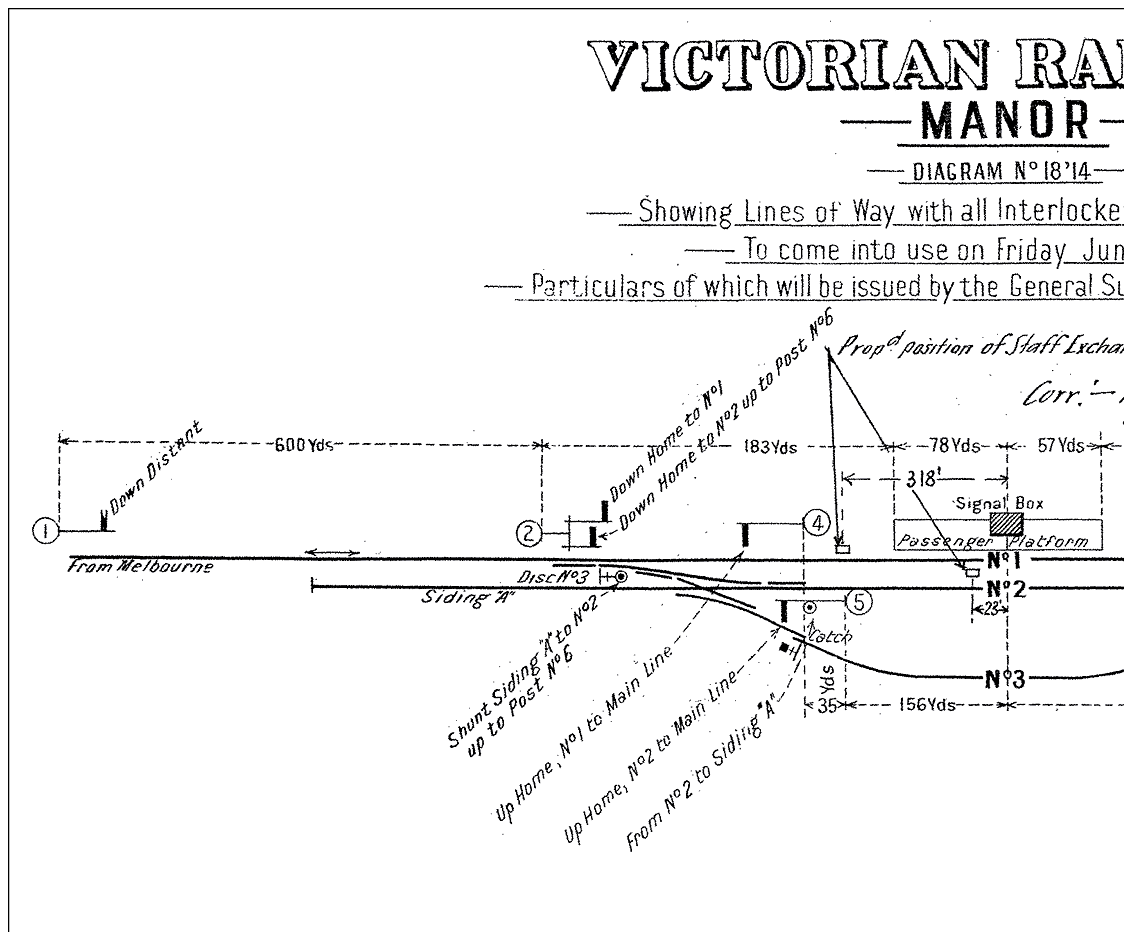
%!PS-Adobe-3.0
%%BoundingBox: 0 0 1124 932
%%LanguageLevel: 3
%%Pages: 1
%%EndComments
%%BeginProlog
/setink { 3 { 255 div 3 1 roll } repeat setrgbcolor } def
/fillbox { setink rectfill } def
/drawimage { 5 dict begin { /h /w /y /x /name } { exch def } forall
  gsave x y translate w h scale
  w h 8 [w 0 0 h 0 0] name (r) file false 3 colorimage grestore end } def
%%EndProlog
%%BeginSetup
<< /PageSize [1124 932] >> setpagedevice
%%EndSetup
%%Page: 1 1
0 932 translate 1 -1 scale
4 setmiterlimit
0 0 1124 932 255 255 255 fillbox
0 0 0 setink
8.5 8.5 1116 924 rectstroke
(assets/img1.rgb) 32 20 1092 832 drawimage
showpage
%%EOF
